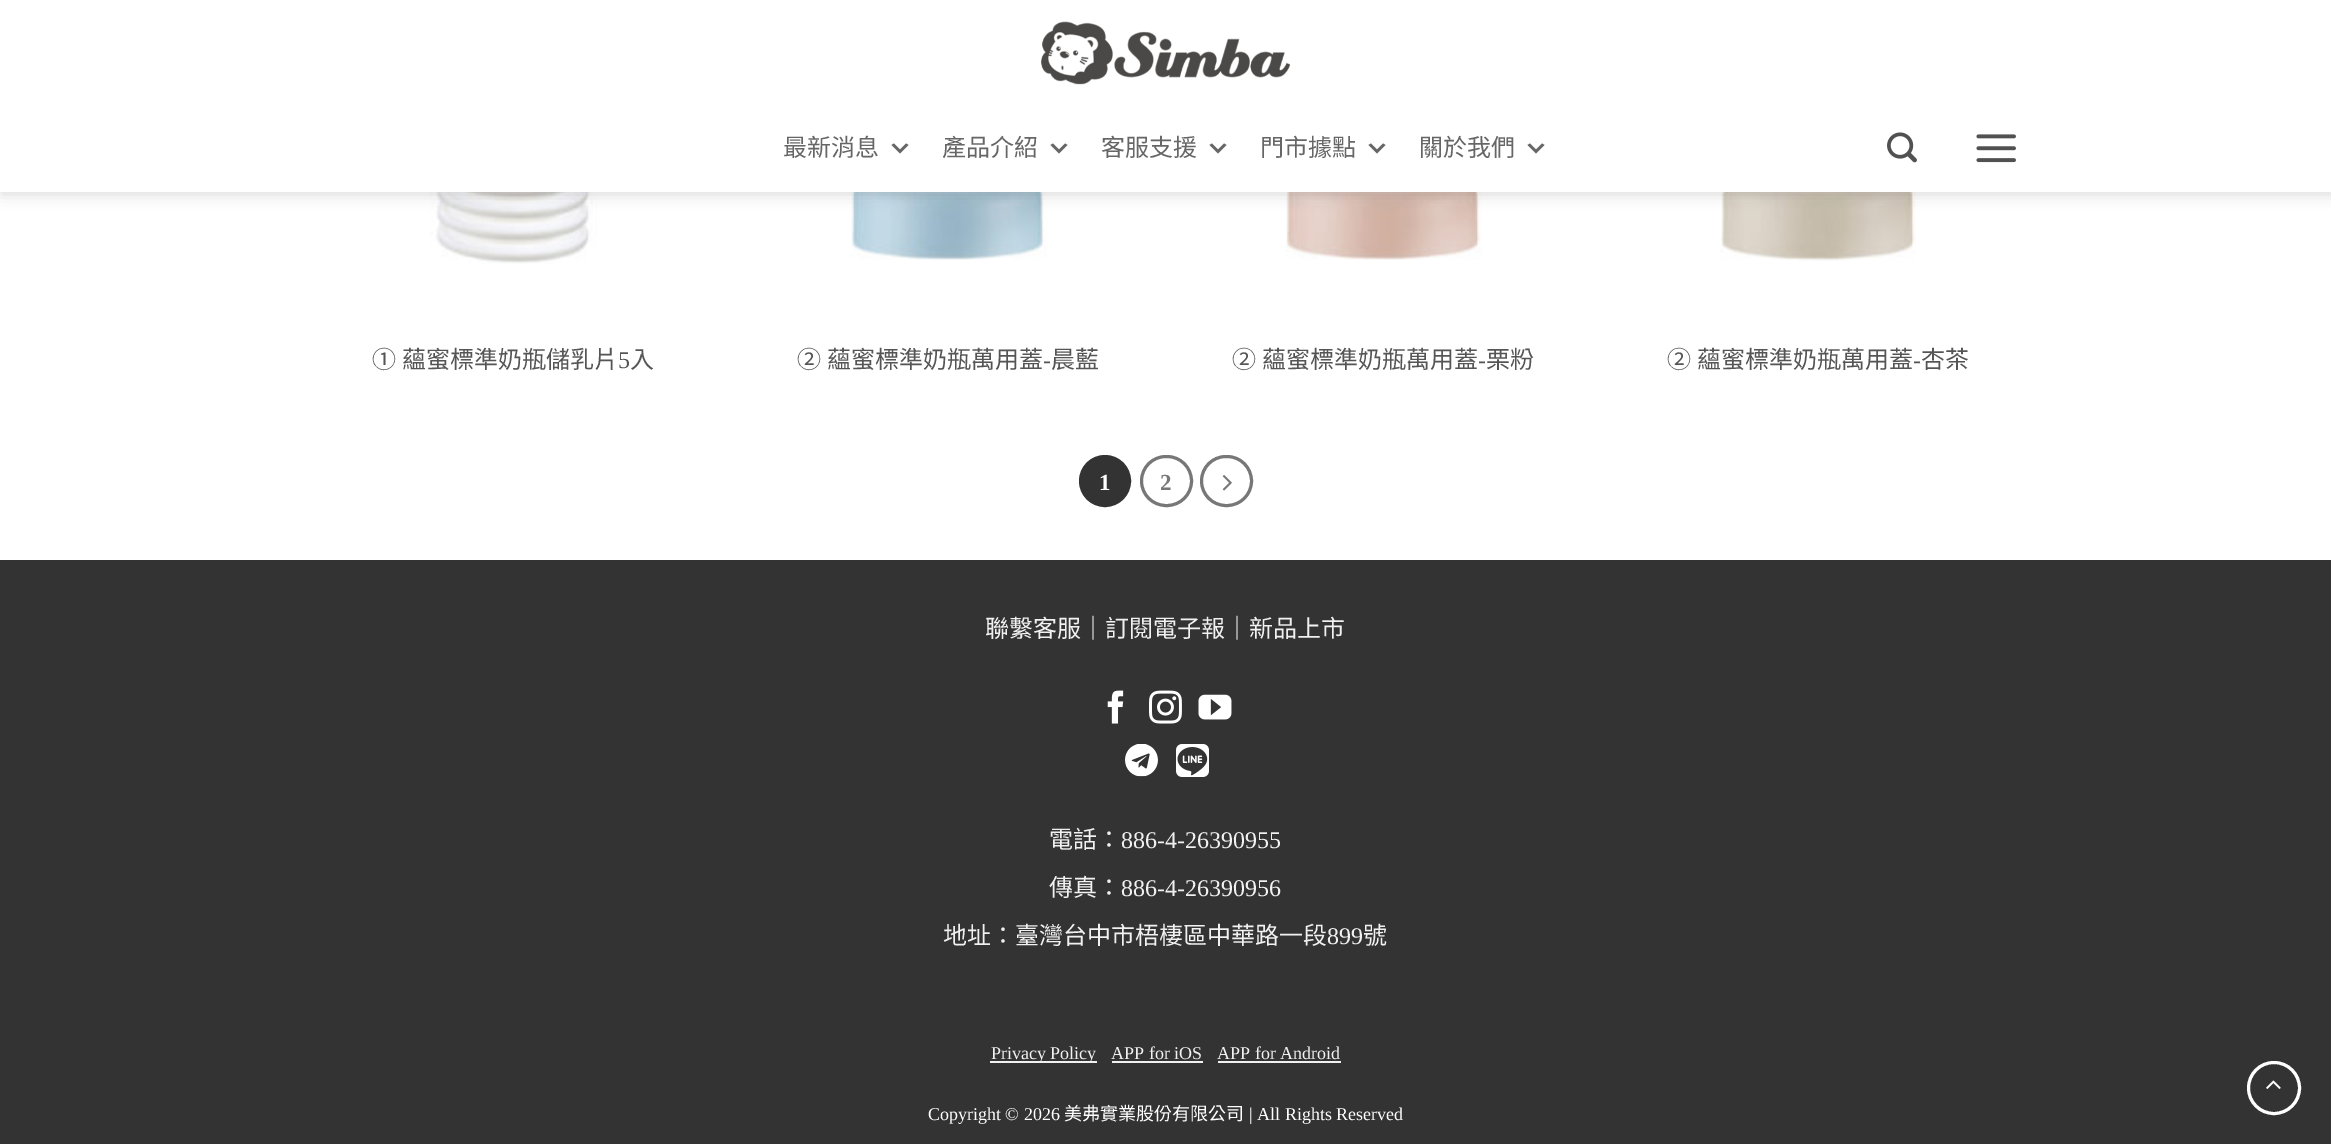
%!PS-Adobe-3.0
%%BoundingBox: 0 0 2331 1144
%%LanguageLevel: 3
%%Pages: 1
%%EndComments
%%BeginProlog
/setink { 3 { 255 div 3 1 roll } repeat setrgbcolor } def
/usefont { [ exch dup neg 0 0 3 -1 roll 0 0 ] selectfont } def
/drawtext { setink usefont moveto show } def
/fillbox { setink rectfill } def
/setalpha { dup .setfillconstantalpha .setstrokeconstantalpha } def
/disc { newpath 0 360 arc closepath } def
/rrect { 5 dict begin { /r /h /w /y /x } { exch def } forall
  x r add y moveto x w add y 2 copy h add r arct x w add y h add x 1 index r arct
  x y h add x y r arct x y 2 copy exch w add exch r arct closepath end } def
/softshadow { 12 dict begin { /a /b /q /h /w /y /x } { exch def } forall gsave /was 0 def
  9 -2 -9 { dup b mul 4 div /e exch def 1 sub .425 mul 2.718 exch exp 1 add a .99 .min exch div /now exch def
    1 1 now sub 1 was sub div sub setalpha /was now def
    w h .min e 2 mul add 0 gt { x e sub y e sub w e 2 mul add h e 2 mul add
      q e add b .6 mul add w h .min 2 div e add .min 0 .max rrect fill } if } for grestore end } def
/drawimage { 5 dict begin { /h /w /y /x /name } { exch def } forall
  gsave x y translate w h scale
  w h 8 [w 0 0 h 0 0] name (r) file false 3 colorimage grestore end } def
%%EndProlog
%%BeginSetup
<< /PageSize [2331 1144] /PageUsesTransparency true >> setpagedevice
%%EndSetup
%%Page: 1 1
0 .pushpdf14devicefilter
0 1144 translate 1 -1 scale
4 setmiterlimit
0 0 2331 1144 255 255 255 fillbox
(assets/img4.rgb) 337 192 260 72 drawimage
(assets/img5.rgb) 772 192 275 68 drawimage
(assets/img6.rgb) 1207 192 275 68 drawimage
(assets/img7.rgb) 1642 192 274 69 drawimage
0 0 0 setink
2 2 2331 192 0 7.5 0.15 softshadow
0 0 2331 192 255 255 255 fillbox
(assets/img1.rgb) 1041 21 249 64 drawimage
(最新消息) 783 156 /NotoSansCJKTC-Regular 24 102 102 102 drawtext
894 143.5 moveto 900 149.5 lineto 906 143.5 lineto 908.5 145 lineto 900 153.5 lineto 891.5 145 lineto closepath fill
(產品介紹) 942 156 /NotoSansCJKTC-Regular 24 102 102 102 drawtext
1053 143.5 moveto 1059 149.5 lineto 1065 143.5 lineto 1067.5 145 lineto 1059 153.5 lineto 1050.5 145 lineto closepath fill
(客服支援) 1101 156 /NotoSansCJKTC-Regular 24 102 102 102 drawtext
1212 143.5 moveto 1218 149.5 lineto 1224 143.5 lineto 1226.5 145 lineto 1218 153.5 lineto 1209.5 145 lineto closepath fill
(門市據點) 1260 156 /NotoSansCJKTC-Regular 24 102 102 102 drawtext
1371 143.5 moveto 1377 149.5 lineto 1383 143.5 lineto 1385.5 145 lineto 1377 153.5 lineto 1368.5 145 lineto closepath fill
(關於我們) 1419 156 /NotoSansCJKTC-Regular 24 102 102 102 drawtext
1530 143.5 moveto 1536 149.5 lineto 1542 143.5 lineto 1544.5 145 lineto 1536 153.5 lineto 1527.5 145 lineto closepath fill
(assets/img2.rgb) 1887 132 30 31 drawimage
(assets/img3.rgb) 1976 134 40 29 drawimage
85 85 85 setink
372 368 moveto 1 0 32 (① 蘊蜜標準奶瓶儲乳片) widthshow
(5) 618 368 /LiberationSerif-Regular 24 85 85 85 drawtext
(入) 630 368 /NotoSansCJKTC-Regular 24 85 85 85 drawtext
797 368 moveto 1 0 32 (② 蘊蜜標準奶瓶萬用蓋) widthshow
(-) 1043 368 /LiberationSerif-Regular 24 85 85 85 drawtext
(晨藍) 1051 368 /NotoSansCJKTC-Regular 24 85 85 85 drawtext
1232 368 moveto 1 0 32 (② 蘊蜜標準奶瓶萬用蓋) widthshow
(-) 1478 368 /LiberationSerif-Regular 24 85 85 85 drawtext
(栗粉) 1486 368 /NotoSansCJKTC-Regular 24 85 85 85 drawtext
1667 368 moveto 1 0 32 (② 蘊蜜標準奶瓶萬用蓋) widthshow
(-) 1913 368 /LiberationSerif-Regular 24 85 85 85 drawtext
(杏茶) 1921 368 /NotoSansCJKTC-Regular 24 85 85 85 drawtext
51 51 51 setink
1105 481 24.5 disc gsave fill grestore
3 setlinewidth
stroke
(1) 1099 490 /LiberationSerif-Bold 23 255 255 255 drawtext
119 119 119 setink
1141.5 456.5 50 49 24.5 rrect stroke
(2) 1160 490 /LiberationSerif-Bold 23 119 119 119 drawtext
1201.5 456.5 50 49 24.5 rrect stroke
(assets/img8.rgb) 1222 475 10 16 drawimage
0 560 2331 584 51 51 51 fillbox
(聯繫客服｜訂閱電子報｜新品上市) 985 637 /NotoSansCJKTC-Regular 24 241 241 241 drawtext
(assets/img9.rgb) 1107 690 17 34 drawimage
(assets/img10.rgb) 1149 690 33 34 drawimage
(assets/img11.rgb) 1198 694 34 26 drawimage
(assets/img12.rgb) 1125 744 33 33 drawimage
(assets/img13.rgb) 1176 744 33 33 drawimage
(電話：) 1049 848 /NotoSansCJKTC-Regular 24 241 241 241 drawtext
(886-4-26390955) 1121 848 /LiberationSerif-Regular 24 241 241 241 drawtext
(傳真：) 1049 896 /NotoSansCJKTC-Regular 24 241 241 241 drawtext
(886-4-26390956) 1121 896 /LiberationSerif-Regular 24 241 241 241 drawtext
(地址：臺灣台中市梧棲區中華路一段) 943 944 /NotoSansCJKTC-Regular 24 241 241 241 drawtext
(899) 1327 944 /LiberationSerif-Regular 24 241 241 241 drawtext
(號) 1363 944 /NotoSansCJKTC-Regular 24 241 241 241 drawtext
990 1061 107 2 241 241 241 fillbox
(Privacy Policy) 991 1059 /LiberationSerif-Regular 18 241 241 241 drawtext
(APP for iOS) 1111 1059 /LiberationSerif-Regular 18 241 241 241 drawtext
1112 1061 91 2 241 241 241 fillbox
(APP for Android) 1217 1059 /LiberationSerif-Regular 18 241 241 241 drawtext
1218 1061 123 2 241 241 241 fillbox
(Copyright © 2026) 928 1120 /LiberationSerif-Regular 18 255 255 255 drawtext
(美弗實業股份有限公司) 1064 1120 /NotoSansCJKTC-Regular 18 255 255 255 drawtext
(| All Rights Reserved) 1249 1120 /LiberationSerif-Regular 18 255 255 255 drawtext
2274 1088 25.5 disc stroke
(assets/img14.rgb) 2266 1080 15 9 drawimage
.poppdf14devicefilter showpage
%%EOF
